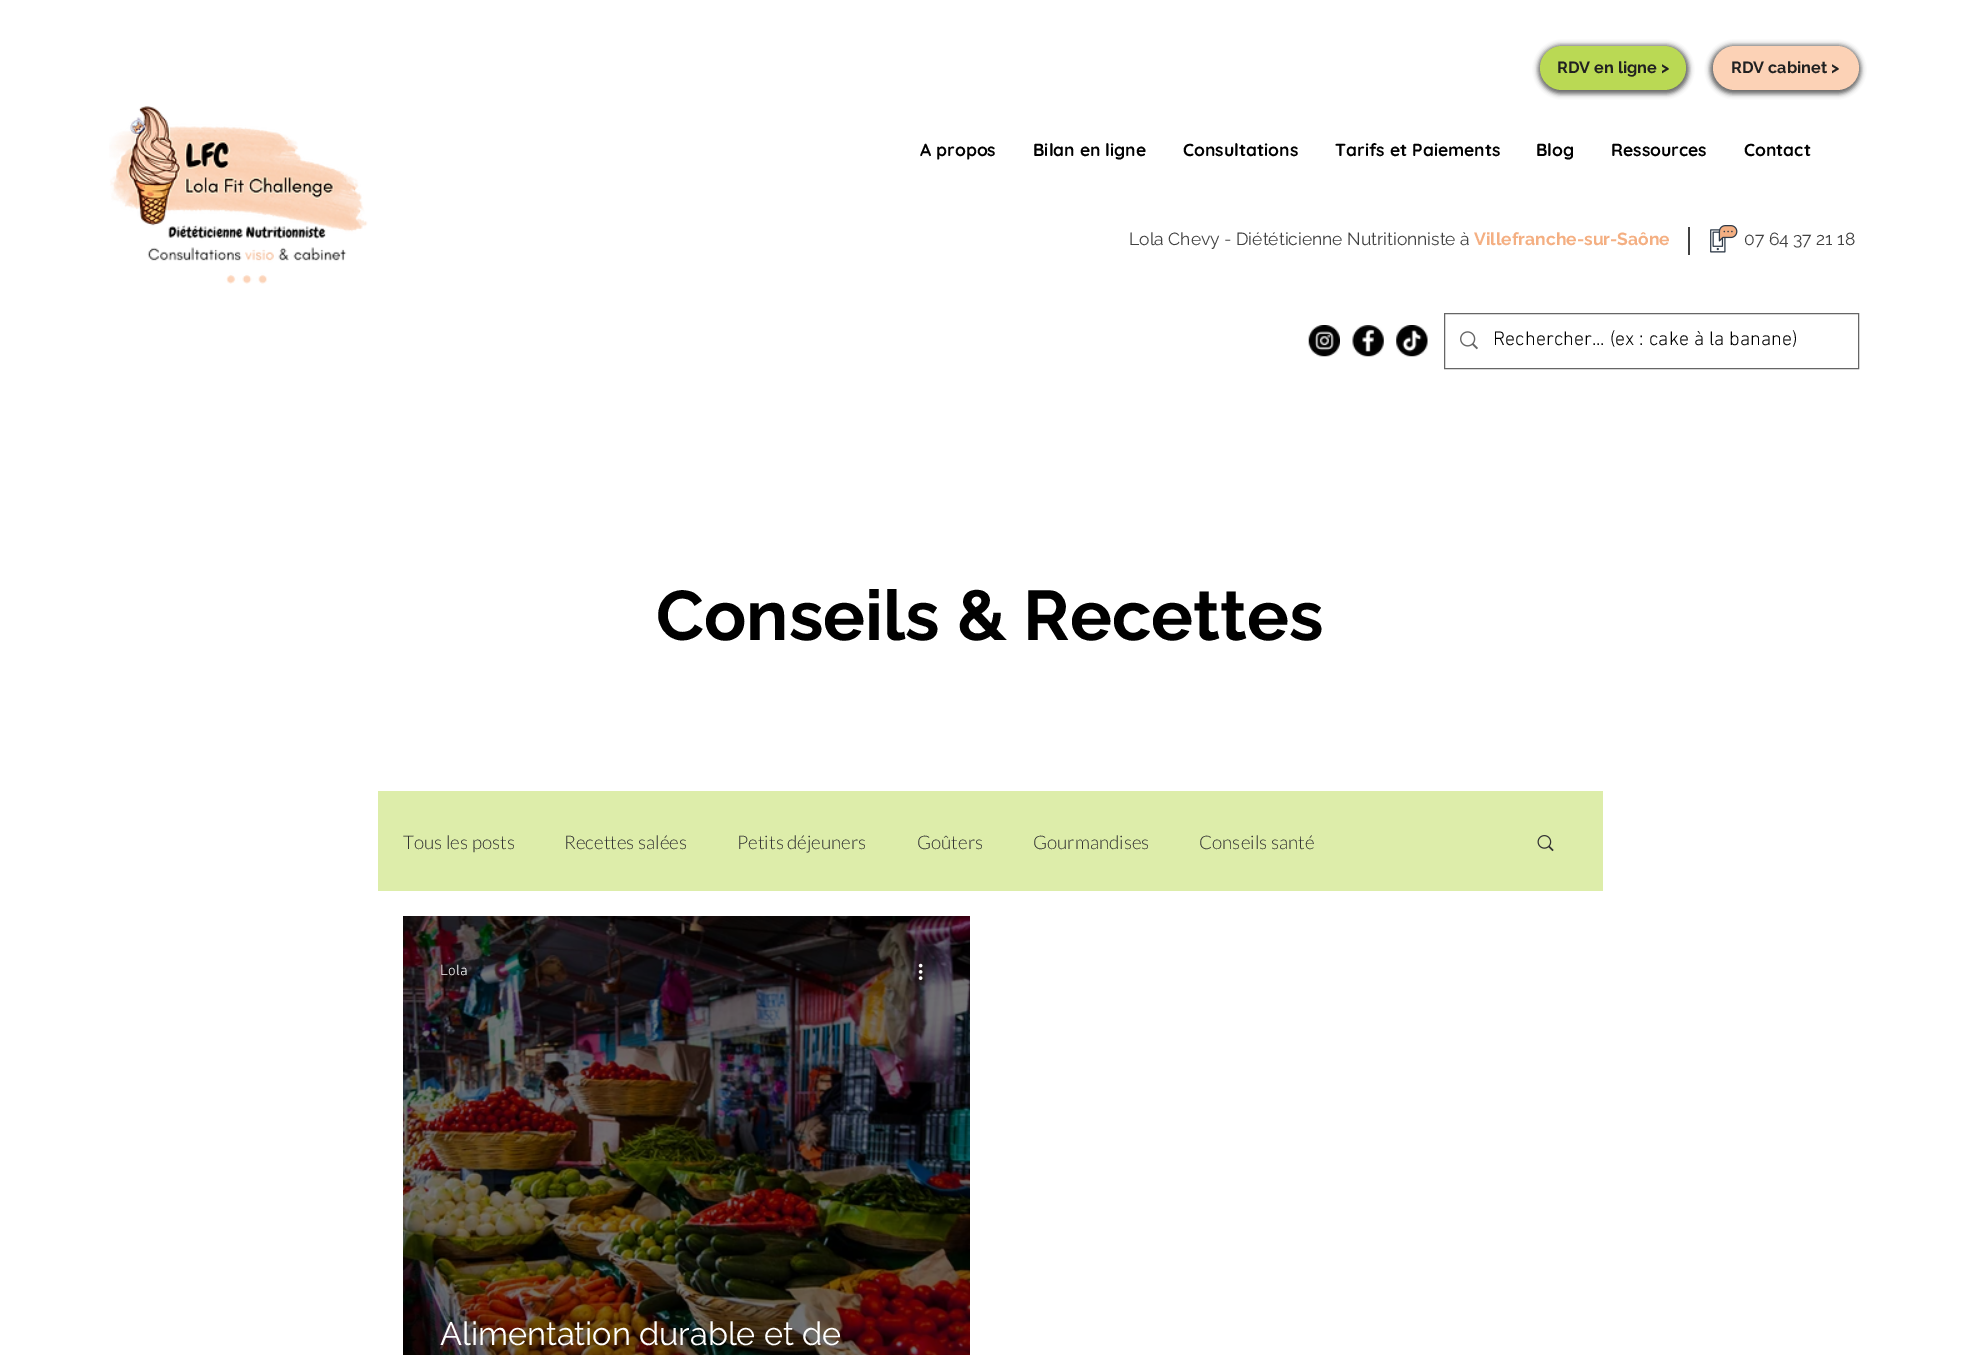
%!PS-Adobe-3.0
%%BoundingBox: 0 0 1979 1355
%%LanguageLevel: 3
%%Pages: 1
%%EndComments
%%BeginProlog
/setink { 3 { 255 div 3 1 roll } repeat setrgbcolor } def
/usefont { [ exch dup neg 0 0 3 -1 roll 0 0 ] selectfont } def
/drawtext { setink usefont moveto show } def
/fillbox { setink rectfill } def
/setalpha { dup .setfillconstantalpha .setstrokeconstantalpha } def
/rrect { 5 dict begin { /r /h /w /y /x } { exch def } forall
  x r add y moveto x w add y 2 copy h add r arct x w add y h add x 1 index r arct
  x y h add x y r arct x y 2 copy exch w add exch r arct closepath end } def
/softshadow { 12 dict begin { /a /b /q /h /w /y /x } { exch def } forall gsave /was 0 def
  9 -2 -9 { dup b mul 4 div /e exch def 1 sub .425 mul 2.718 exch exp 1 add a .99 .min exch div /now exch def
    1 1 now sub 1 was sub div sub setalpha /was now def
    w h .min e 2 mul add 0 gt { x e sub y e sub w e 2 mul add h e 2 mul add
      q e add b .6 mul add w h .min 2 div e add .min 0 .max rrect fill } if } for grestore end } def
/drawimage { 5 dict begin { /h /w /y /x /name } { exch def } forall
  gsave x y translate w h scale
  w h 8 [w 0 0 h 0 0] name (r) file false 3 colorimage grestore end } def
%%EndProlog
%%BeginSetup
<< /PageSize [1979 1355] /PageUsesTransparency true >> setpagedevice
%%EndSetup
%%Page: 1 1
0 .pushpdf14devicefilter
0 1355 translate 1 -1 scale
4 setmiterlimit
0 0 1979 1355 255 255 255 fillbox
(assets/img1.rgb) 109 106 259 178 drawimage
0 0 0 setink
1538 45 151 49 24.5 2.5 0.6 softshadow
186 217 84 setink
1540 46 146 44 22 rrect fill
(RDV en ligne >) 1557 73 /Raleway-Bold 16.25 33 33 33 drawtext
0 0 0 setink
1710 45 151 49 24.5 2.5 0.6 softshadow
252 210 182 setink
1713 46 146 44 22 rrect fill
(RDV cabinet >) 1731 73 /Raleway-Bold 16.25 33 33 33 drawtext
(A propos) 920 156 /Quicksand-Bold 17.5 0 0 0 drawtext
(Bilan en ligne) 1033 156 /Quicksand-Bold 17.5 0 0 0 drawtext
(Consultations) 1183 156 /Quicksand-Bold 17.5 0 0 0 drawtext
(Tarifs et Paiements) 1335 156 /Quicksand-Bold 17.5 0 0 0 drawtext
(Blog) 1536 156 /Quicksand-Bold 17.5 0 0 0 drawtext
(Ressources) 1611 156 /Quicksand-Bold 17.5 0 0 0 drawtext
(Contact) 1744 156 /Quicksand-Bold 17.5 0 0 0 drawtext
(Lola Chevy - Diététicienne Nutritionniste à) 1129 245 /Raleway-Regular 17.5 65 65 65 drawtext
(Villefranche-sur-Saône) 1474 245 /Raleway-Bold 17.5 244 175 130 drawtext
1688 227 2 28 65 65 65 fillbox
(assets/img2.rgb) 1710 225 28 28 drawimage
(07 64 37 21 18) 1744 245 /Raleway-Regular 17.5 65 65 65 drawtext
(assets/img3.rgb) 1308 325 32 32 drawimage
(assets/img4.rgb) 1352 325 32 32 drawimage
(assets/img5.rgb) 1396 325 32 32 drawimage
102 102 102 setink
1444.5 313.5 414 55 rectstroke
(assets/img6.rgb) 1460 331 18 19 drawimage
(Rechercher... \(ex : cake à la banane\)) 1493 345 /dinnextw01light-Light 20 0 0 0 drawtext
(Conseils & Recettes) 656 640 /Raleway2-Bold 70 0 0 0 drawtext
378 791 1225 100 221 237 170 fillbox
(Tous les posts) 403 849 /Lato-Light 18.75 50 50 50 drawtext
(Recettes salées) 564 849 /Lato-Light 18.75 50 50 50 drawtext
(Petits déjeuners) 737 849 /Lato-Light 18.75 50 50 50 drawtext
(Goûters) 917 849 /Lato-Light 18.75 50 50 50 drawtext
(Gourmandises) 1033 849 /Lato-Light 18.75 50 50 50 drawtext
(Conseils santé) 1199 849 /Lato-Light 18.75 50 50 50 drawtext
(assets/img7.rgb) 1537 835 17 17 drawimage
(assets/img8.rgb) 403 916 567 439 drawimage
(Lola) 440 975 /dinnextw01light-Light 15 255 255 255 drawtext
(assets/img9.rgb) 918 963 5 17 drawimage
(Alimentation durable et de) 440 1345 /Raleway-Regular 32.5 255 255 255 drawtext
.poppdf14devicefilter showpage
%%EOF
